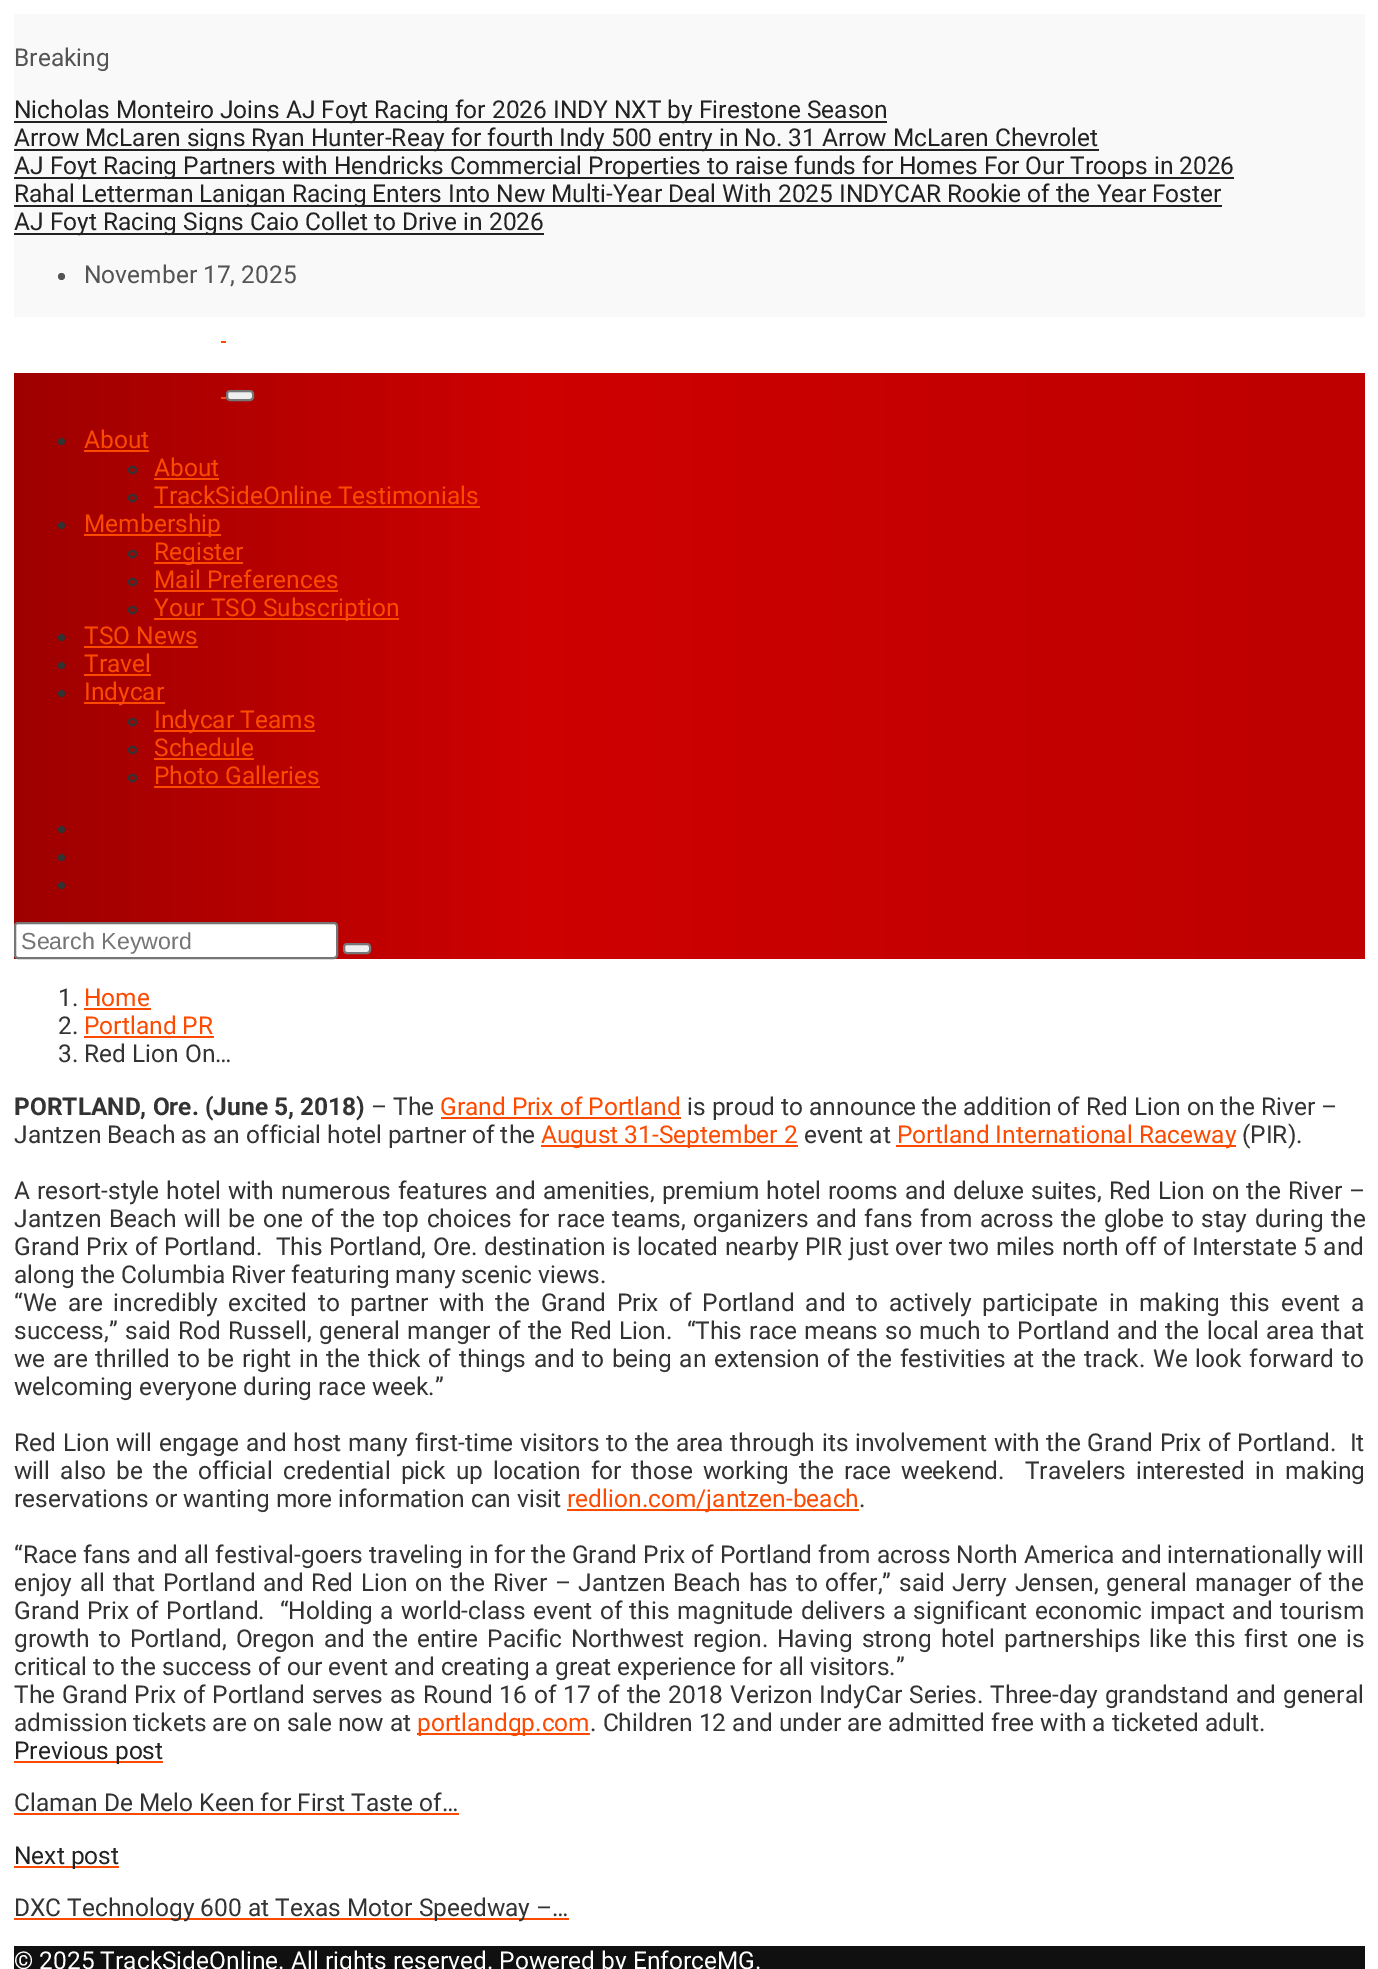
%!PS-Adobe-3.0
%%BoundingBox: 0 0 1378 1969
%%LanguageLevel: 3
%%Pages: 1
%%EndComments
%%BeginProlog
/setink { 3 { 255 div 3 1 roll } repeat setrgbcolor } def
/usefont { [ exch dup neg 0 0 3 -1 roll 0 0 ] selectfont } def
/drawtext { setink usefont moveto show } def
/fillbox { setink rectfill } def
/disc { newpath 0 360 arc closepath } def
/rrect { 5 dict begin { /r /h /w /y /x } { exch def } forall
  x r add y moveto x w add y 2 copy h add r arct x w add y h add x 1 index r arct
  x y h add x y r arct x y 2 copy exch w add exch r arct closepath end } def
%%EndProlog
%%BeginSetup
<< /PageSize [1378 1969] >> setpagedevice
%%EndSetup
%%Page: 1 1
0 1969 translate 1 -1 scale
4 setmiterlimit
0 0 1378 1969 255 255 255 fillbox
14 14 1351 303 249 249 249 fillbox
(Breaking) 14 66 /Roboto-Regular 24.5 84 84 84 drawtext
14 121 873 2 34 34 34 fillbox
(Nicholas Monteiro Joins AJ Foyt Racing for 2026 INDY NXT by Firestone Season) 14 118 /Roboto-Regular 24.5 34 34 34 drawtext
14 149 1085 2 34 34 34 fillbox
(Arrow McLaren signs Ryan Hunter-Reay for fourth Indy 500 entry in No. 31 Arrow McLaren Chevrolet) 14 146 /Roboto-Regular 24.5 34 34 34 drawtext
14 177 1220 2 34 34 34 fillbox
(AJ Foyt Racing Partners with Hendricks Commercial Properties to raise funds for Homes For Our Troops in 2026) 14 174 /Roboto-Regular 24.5 34 34 34 drawtext
14 205 1208 2 34 34 34 fillbox
(Rahal Letterman Lanigan Racing Enters Into New Multi-Year Deal With 2025 INDYCAR Rookie of the Year Foster) 14 202 /Roboto-Regular 24.5 34 34 34 drawtext
14 233 530 2 34 34 34 fillbox
(AJ Foyt Racing Signs Caio Collet to Drive in 2026) 14 230 /Roboto-Regular 24.5 34 34 34 drawtext
84 84 84 setink
61.5 276.5 3.5 disc fill
(November 17, 2025) 84 283 /Roboto-Regular 24.5 84 84 84 drawtext
221 341 5 2 252 74 0 fillbox
gsave 14 373 moveto 1365 373 lineto 1365 959 lineto 14 959 lineto closepath clip newpath
<< /ShadingType 2 /ColorSpace /DeviceRGB /Coords [14 666 1365 666] /Extend [true true] /Function << /FunctionType 3 /Domain [0 1] /Functions [<< /FunctionType 2 /Domain [0 1] /C0 [0.62 0 0] /C1 [0.808 0 0] /N 1 >> << /FunctionType 2 /Domain [0 1] /C0 [0.808 0 0] /C1 [0.745 0 0] /N 1 >>] /Bounds [0.38] /Encode [0 1 0 1] >> >> shfill grestore
221 397 5 2 252 74 0 fillbox
239 239 239 setink
227 391 26 9 3 rrect gsave fill grestore
118 118 118 setink
2 setlinewidth
stroke
51 51 51 setink
61.5 441.5 3.5 disc fill
(About) 84 448 /Roboto-Regular 24.5 252 74 0 drawtext
84 450 65 2 252 74 0 fillbox
51 51 51 setink
129 467 7 6 3 rrect stroke
(About) 154 476 /Roboto-Regular 24.5 252 74 0 drawtext
154 478 65 2 252 74 0 fillbox
51 51 51 setink
129 495 7 6 3 rrect stroke
(TrackSideOnline Testimonials) 154 504 /Roboto-Regular 24.5 252 74 0 drawtext
154 506 326 2 252 74 0 fillbox
51 51 51 setink
61.5 525.5 3.5 disc fill
84 534 137 2 252 74 0 fillbox
(Membership) 84 532 /Roboto-Regular 24.5 252 74 0 drawtext
51 51 51 setink
129 551 7 6 3 rrect stroke
154 562 89 2 252 74 0 fillbox
(Register) 154 560 /Roboto-Regular 24.5 252 74 0 drawtext
51 51 51 setink
129 579 7 6 3 rrect stroke
(Mail Preferences) 154 588 /Roboto-Regular 24.5 252 74 0 drawtext
154 590 184 2 252 74 0 fillbox
51 51 51 setink
129 607 7 6 3 rrect stroke
154 618 245 2 252 74 0 fillbox
(Your TSO Subscription) 154 616 /Roboto-Regular 24.5 252 74 0 drawtext
51 51 51 setink
61.5 637.5 3.5 disc fill
(TSO News) 84 644 /Roboto-Regular 24.5 252 74 0 drawtext
84 646 114 2 252 74 0 fillbox
51 51 51 setink
61.5 665.5 3.5 disc fill
(Travel) 84 672 /Roboto-Regular 24.5 252 74 0 drawtext
84 674 67 2 252 74 0 fillbox
51 51 51 setink
61.5 693.5 3.5 disc fill
84 702 81 2 252 74 0 fillbox
(Indycar) 84 700 /Roboto-Regular 24.5 252 74 0 drawtext
51 51 51 setink
129 719 7 6 3 rrect stroke
154 730 161 2 252 74 0 fillbox
(Indycar Teams) 154 728 /Roboto-Regular 24.5 252 74 0 drawtext
51 51 51 setink
129 747 7 6 3 rrect stroke
(Schedule) 154 756 /Roboto-Regular 24.5 252 74 0 drawtext
154 758 100 2 252 74 0 fillbox
51 51 51 setink
129 775 7 6 3 rrect stroke
(Photo Galleries) 154 784 /Roboto-Regular 24.5 252 74 0 drawtext
154 786 166 2 252 74 0 fillbox
51 51 51 setink
61.5 829.5 3.5 disc fill
61.5 857.5 3.5 disc fill
61.5 885.5 3.5 disc fill
255 255 255 setink
15 923 322 35 3 rrect gsave fill grestore
118 118 118 setink
stroke
(Search Keyword) 21 949 /LiberationSans-Regular 23.25 117 117 117 drawtext
239 239 239 setink
344 944 26 9 3 rrect gsave fill grestore
118 118 118 setink
stroke
(1.) 58 1006 /Roboto-Regular 24.5 51 51 51 drawtext
(Home) 84 1006 /Roboto-Regular 24.5 252 74 0 drawtext
84 1008 67 2 252 74 0 fillbox
(2.) 58 1034 /Roboto-Regular 24.5 51 51 51 drawtext
(Portland PR) 84 1034 /Roboto-Regular 24.5 252 74 0 drawtext
84 1036 130 2 252 74 0 fillbox
(3. Red Lion On…) 58 1062 /Roboto-Regular 24.5 51 51 51 drawtext
(PORTLAND, Ore. \(June 5, 2018\)) 14 1115 /Roboto-Bold 24.5 51 51 51 drawtext
(– The) 371 1115 /Roboto-Regular 24.5 51 51 51 drawtext
(Grand Prix of Portland) 440 1115 /Roboto-Regular 24.5 252 74 0 drawtext
441 1117 240 2 252 74 0 fillbox
(is proud to announce the addition of Red Lion on the River –) 687 1115 /Roboto-Regular 24.5 51 51 51 drawtext
(Jantzen Beach as an official hotel partner of the) 14 1143 /Roboto-Regular 24.5 51 51 51 drawtext
541 1145 257 2 252 74 0 fillbox
(August 31-September 2) 541 1143 /Roboto-Regular 24.5 252 74 0 drawtext
(event at) 804 1143 /Roboto-Regular 24.5 51 51 51 drawtext
896 1145 340 2 252 74 0 fillbox
(Portland International Raceway) 897 1143 /Roboto-Regular 24.5 252 74 0 drawtext
(\(PIR\).) 1242 1143 /Roboto-Regular 24.5 51 51 51 drawtext
14 1199 moveto 1 0 32 (A resort-style hotel with numerous features and amenities, premium hotel rooms and deluxe suites, Red Lion on the River –) widthshow
14 1227 moveto 1.6 0 32 (Jantzen Beach will be one of the top choices for race teams, organizers and fans from across the globe to stay during the) widthshow
14 1255 moveto 0.5 0 32 (Grand Prix of Portland.  This Portland, Ore. destination is located nearby PIR just over two miles north off of Interstate 5 and) widthshow
(along the Columbia River featuring many scenic views.) 14 1283 /Roboto-Regular 24.5 51 51 51 drawtext
14 1311 moveto 4.5 0 32 (“We are incredibly excited to partner with the Grand Prix of Portland and to actively participate in making this event a) widthshow
14 1339 moveto 1.25 0 32 (success,” said Rod Russell, general manger of the Red Lion.  “This race means so much to Portland and the local area that) widthshow
14 1367 moveto 1.6 0 32 (we are thrilled to be right in the thick of things and to being an extension of the festivities at the track. We look forward to) widthshow
(welcoming everyone during race week.”) 14 1395 /Roboto-Regular 24.5 51 51 51 drawtext
14 1451 moveto 0.6 0 32 (Red Lion will engage and host many first-time visitors to the area through its involvement with the Grand Prix of Portland.  It) widthshow
14 1479 moveto 4 0 32 (will also be the official credential pick up location for those working the race weekend.  Travelers interested in making) widthshow
(reservations or wanting more information can visit) 14 1507 /Roboto-Regular 24.5 51 51 51 drawtext
567 1509 292 2 252 74 0 fillbox
(redlion.com/jantzen-beach) 567 1507 /Roboto-Regular 24.5 252 74 0 drawtext
(.) 859 1507 /Roboto-Regular 24.5 51 51 51 drawtext
(“Race fans and all festival-goers traveling in for the Grand Prix of Portland from across North America and internationally will) 14 1563 /Roboto-Regular 24.5 51 51 51 drawtext
14 1591 moveto 1.6 0 32 (enjoy all that Portland and Red Lion on the River – Jantzen Beach has to offer,” said Jerry Jensen, general manager of the) widthshow
14 1619 moveto 1.3 0 32 (Grand Prix of Portland.  “Holding a world-class event of this magnitude delivers a significant economic impact and tourism) widthshow
14 1647 moveto 2.75 0 32 (growth to Portland, Oregon and the entire Pacific Northwest region. Having strong hotel partnerships like this first one is) widthshow
(critical to the success of our event and creating a great experience for all visitors.”) 14 1675 /Roboto-Regular 24.5 51 51 51 drawtext
14 1703 moveto 0.75 0 32 (The Grand Prix of Portland serves as Round 16 of 17 of the 2018 Verizon IndyCar Series. Three-day grandstand and general) widthshow
(admission tickets are on sale now at) 14 1731 /Roboto-Regular 24.5 51 51 51 drawtext
417 1733 173 2 252 74 0 fillbox
(portlandgp.com) 417 1731 /Roboto-Regular 24.5 252 74 0 drawtext
(. Children 12 and under are admitted free with a ticketed adult.) 590 1731 /Roboto-Regular 24.5 51 51 51 drawtext
14 1761 149 2 252 74 0 fillbox
(Previous post) 14 1759 /Roboto-Regular 24.5 34 34 34 drawtext
(Claman De Melo Keen for First Taste of…) 14 1811 /Roboto-Regular 24.5 51 51 51 drawtext
14 1813 445 2 252 74 0 fillbox
14 1866 105 2 252 74 0 fillbox
(Next post) 14 1864 /Roboto-Regular 24.5 34 34 34 drawtext
14 1918 555 2 252 74 0 fillbox
(DXC Technology 600 at Texas Motor Speedway –…) 14 1916 /Roboto-Regular 24.5 51 51 51 drawtext
14 1946 1351 23 16 16 16 fillbox
(© 2025 TrackSideOnline. All rights reserved. Powered by EnforceMG.) 14 1969 /Roboto-Regular 24.5 255 255 255 drawtext
showpage
%%EOF
